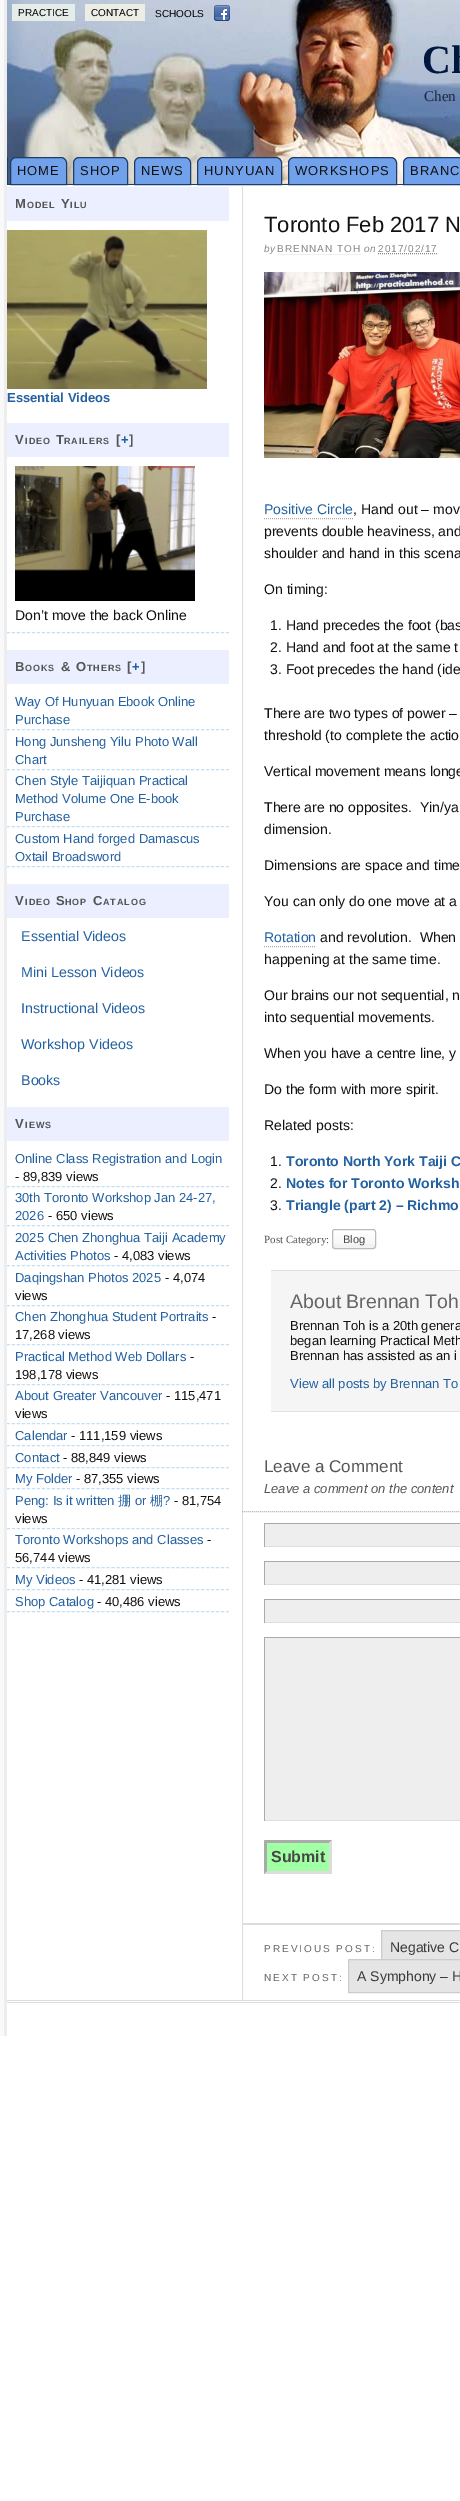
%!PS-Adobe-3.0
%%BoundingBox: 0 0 460 2501
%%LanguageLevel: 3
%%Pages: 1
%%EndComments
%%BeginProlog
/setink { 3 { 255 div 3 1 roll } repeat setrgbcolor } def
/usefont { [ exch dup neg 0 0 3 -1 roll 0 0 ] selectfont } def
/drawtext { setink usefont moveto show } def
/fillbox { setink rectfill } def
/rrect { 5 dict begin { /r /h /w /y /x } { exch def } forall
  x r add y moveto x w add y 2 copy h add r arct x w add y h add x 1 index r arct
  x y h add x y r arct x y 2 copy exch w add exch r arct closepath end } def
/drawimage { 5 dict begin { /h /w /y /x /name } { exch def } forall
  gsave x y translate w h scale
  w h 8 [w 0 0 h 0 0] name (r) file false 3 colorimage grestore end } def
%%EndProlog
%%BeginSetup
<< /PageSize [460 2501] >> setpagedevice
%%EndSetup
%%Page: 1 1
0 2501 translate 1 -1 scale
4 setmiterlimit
0 0 460 2501 255 255 255 fillbox
4 0 3 2036 237 237 237 fillbox
0 0 4 2036 249 249 249 fillbox
(assets/img1.rgb) 7 0 453 184 drawimage
12 4 63 17 229 237 235 fillbox
(PRACTICE) 18 16 /LiberationSans-Regular 10 0 0 0 drawtext
85 4 60 17 236 237 228 fillbox
(CONTACT) 91 16 /LiberationSans-Regular 10 0 0 0 drawtext
(SCHOOLS) 155 17 /LiberationSans-Regular 10 0 0 0 drawtext
(assets/img2.rgb) 214 5 16 16 drawimage
(Ch) 422 73 /LiberationSerif-Bold 40 0 24 62 drawtext
(Chen) 424 101 /LiberationSerif-Regular 15 29 41 68 drawtext
7 184 396 1 29 62 105 fillbox
7 157 1 28 29 62 105 fillbox
113 161 235 setink
16 157.5 moveto 61 157.5 lineto 64 157.5 66.5 160 66.5 163 curveto 66.5 184.5 lineto 10.5 184.5 lineto 10.5 163 lineto 10.5 160 13 157.5 16 157.5 curveto closepath gsave fill grestore
29 62 105 setink
stroke
/LiberationSans-Regular 13 usefont
17 17 17 setink
17 175 moveto 1 0 (HOME) ashow
113 161 235 setink
79 157.5 moveto 122 157.5 lineto 125 157.5 127.5 160 127.5 163 curveto 127.5 184.5 lineto 73.5 184.5 lineto 73.5 163 lineto 73.5 160 76 157.5 79 157.5 curveto closepath gsave fill grestore
29 62 105 setink
stroke
17 17 17 setink
80 175 moveto 1 0 (SHOP) ashow
113 161 235 setink
140 157.5 moveto 185 157.5 lineto 188 157.5 190.5 160 190.5 163 curveto 190.5 184.5 lineto 134.5 184.5 lineto 134.5 163 lineto 134.5 160 137 157.5 140 157.5 curveto closepath gsave fill grestore
29 62 105 setink
stroke
17 17 17 setink
141 175 moveto 1 0 (NEWS) ashow
113 161 235 setink
203 157.5 moveto 276 157.5 lineto 279 157.5 281.5 160 281.5 163 curveto 281.5 184.5 lineto 197.5 184.5 lineto 197.5 163 lineto 197.5 160 200 157.5 203 157.5 curveto closepath gsave fill grestore
29 62 105 setink
stroke
17 17 17 setink
204 175 moveto 1 0 (HUNYUAN) ashow
113 161 235 setink
294 157.5 moveto 391 157.5 lineto 394 157.5 396.5 160 396.5 163 curveto 396.5 184.5 lineto 288.5 184.5 lineto 288.5 163 lineto 288.5 160 291 157.5 294 157.5 curveto closepath gsave fill grestore
29 62 105 setink
stroke
17 17 17 setink
295 175 moveto 1 0 (WORKSHOPS) ashow
113 161 235 setink
409 157.5 moveto 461 157.5 lineto 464 157.5 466.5 160 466.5 163 curveto 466.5 184.5 lineto 403.5 184.5 lineto 403.5 163 lineto 403.5 160 406 157.5 409 157.5 curveto closepath gsave fill grestore
29 62 105 setink
stroke
17 17 17 setink
410 175 moveto 1 0 (BRANC) ashow
242 185 1 1815 221 221 221 fillbox
7 187 222 34 235 239 255 fillbox
/LiberationSans-Bold 13 usefont
85 85 85 setink
15 208 moveto 1 0 (M) ashow
/LiberationSans-Bold 9 usefont
27 208 moveto 1 0 (ODEL) ashow
/LiberationSans-Bold 13 usefont
61 208 moveto 1 0 (Y) ashow
/LiberationSans-Bold 9 usefont
70 208 moveto 1 0 (ILU) ashow
(assets/img3.rgb) 7 230 200 159 drawimage
(Essential Videos) 7 402 /LiberationSans-Bold 13 35 97 161 drawtext
7 423 222 34 235 239 255 fillbox
85 85 85 setink
15 444 moveto 1 0 (V) ashow
/LiberationSans-Bold 9 usefont
25 444 moveto 1 0 (IDEO) ashow
/LiberationSans-Bold 13 usefont
56 444 moveto 1 0 (T) ashow
/LiberationSans-Bold 9 usefont
64 444 moveto 1 0 (RAILERS) ashow
/LiberationSans-Bold 13 usefont
116 444 moveto 1 0 ([) ashow
35 97 161 setink
121 444 moveto 1 0 (+) ashow
85 85 85 setink
129 444 moveto 1 0 (]) ashow
195 223 245 setink
[3 1.98] 0 setdash
7 632.5 moveto 229 632.5 lineto stroke
(assets/img4.rgb) 15 466 180 135 drawimage
(Don’t move the back Online) 15 620 /LiberationSans-Regular 14 17 17 17 drawtext
7 650 222 34 235 239 255 fillbox
/LiberationSans-Bold 13 usefont
85 85 85 setink
15 671 moveto 1 0 (B) ashow
/LiberationSans-Bold 9 usefont
25 671 moveto 1 0 (OOKS) ashow
/LiberationSans-Bold 13 usefont
61 671 moveto 1 0 (& O) ashow
/LiberationSans-Bold 9 usefont
87 671 moveto 1 0 (THERS) ashow
/LiberationSans-Bold 13 usefont
127 671 moveto 1 0 ([) ashow
35 97 161 setink
132 671 moveto 1 0 (+) ashow
85 85 85 setink
141 671 moveto 1 0 (]) ashow
195 223 245 setink
7 729.5 moveto 229 729.5 lineto stroke
(Way Of Hunyuan Ebook Online) 15 706 /LiberationSans-Regular 13 35 97 161 drawtext
(Purchase) 15 724 /LiberationSans-Regular 13 35 97 161 drawtext
195 223 245 setink
7 769.5 moveto 229 769.5 lineto stroke
(Hong Junsheng Yilu Photo Wall) 15 746 /LiberationSans-Regular 13 35 97 161 drawtext
(Chart) 15 764 /LiberationSans-Regular 13 35 97 161 drawtext
195 223 245 setink
7 826.5 moveto 229 826.5 lineto stroke
(Chen Style Taijiquan Practical) 15 785 /LiberationSans-Regular 13 35 97 161 drawtext
(Method Volume One E-book) 15 803 /LiberationSans-Regular 13 35 97 161 drawtext
(Purchase) 15 821 /LiberationSans-Regular 13 35 97 161 drawtext
195 223 245 setink
7 866.5 moveto 229 866.5 lineto stroke
(Custom Hand forged Damascus) 15 843 /LiberationSans-Regular 13 35 97 161 drawtext
(Oxtail Broadsword) 15 861 /LiberationSans-Regular 13 35 97 161 drawtext
7 884 222 34 235 239 255 fillbox
/LiberationSans-Bold 13 usefont
85 85 85 setink
15 905 moveto 1 0 (V) ashow
/LiberationSans-Bold 9 usefont
25 905 moveto 1 0 (IDEO) ashow
/LiberationSans-Bold 13 usefont
56 905 moveto 1 0 (S) ashow
/LiberationSans-Bold 9 usefont
65 905 moveto 1 0 (HOP) ashow
/LiberationSans-Bold 13 usefont
93 905 moveto 1 0 (C) ashow
/LiberationSans-Bold 9 usefont
103 905 moveto 1 0 (ATALOG) ashow
(Essential Videos) 21 941 /LiberationSans-Regular 14.25 35 97 161 drawtext
(Mini Lesson Videos) 21 977 /LiberationSans-Regular 14.25 35 97 161 drawtext
(Instructional Videos) 21 1013 /LiberationSans-Regular 14.25 35 97 161 drawtext
(Workshop Videos) 21 1049 /LiberationSans-Regular 14.25 35 97 161 drawtext
(Books) 21 1085 /LiberationSans-Regular 14.25 35 97 161 drawtext
7 1107 222 34 235 239 255 fillbox
/LiberationSans-Bold 13 usefont
85 85 85 setink
15 1128 moveto 1 0 (V) ashow
/LiberationSans-Bold 9 usefont
25 1128 moveto 1 0 (IEWS) ashow
195 223 245 setink
7 1186.5 moveto 229 1186.5 lineto stroke
(Online Class Registration and Login) 15 1163 /LiberationSans-Regular 13 35 97 161 drawtext
(- 89,839 views) 15 1181 /LiberationSans-Regular 13 17 17 17 drawtext
195 223 245 setink
7 1225.5 moveto 229 1225.5 lineto stroke
(30th Toronto Workshop Jan 24-27,) 15 1202 /LiberationSans-Regular 13 35 97 161 drawtext
(2026) 15 1220 /LiberationSans-Regular 13 35 97 161 drawtext
(- 650 views) 48 1220 /LiberationSans-Regular 13 17 17 17 drawtext
195 223 245 setink
7 1265.5 moveto 229 1265.5 lineto stroke
(2025 Chen Zhonghua Taiji Academy) 15 1242 /LiberationSans-Regular 13 35 97 161 drawtext
(Activities Photos) 15 1260 /LiberationSans-Regular 13 35 97 161 drawtext
(- 4,083 views) 114 1260 /LiberationSans-Regular 13 17 17 17 drawtext
195 223 245 setink
7 1305.5 moveto 229 1305.5 lineto stroke
(Daqingshan Photos 2025) 15 1282 /LiberationSans-Regular 13 35 97 161 drawtext
(- 4,074) 165 1282 /LiberationSans-Regular 13 17 17 17 drawtext
(views) 15 1300 /LiberationSans-Regular 13 17 17 17 drawtext
195 223 245 setink
7 1344.5 moveto 229 1344.5 lineto stroke
(Chen Zhonghua Student Portraits) 15 1321 /LiberationSans-Regular 13 35 97 161 drawtext
(-) 212 1321 /LiberationSans-Regular 13 17 17 17 drawtext
(17,268 views) 15 1339 /LiberationSans-Regular 13 17 17 17 drawtext
195 223 245 setink
7 1384.5 moveto 229 1384.5 lineto stroke
(Practical Method Web Dollars) 15 1361 /LiberationSans-Regular 13 35 97 161 drawtext
(-) 190 1361 /LiberationSans-Regular 13 17 17 17 drawtext
(198,178 views) 15 1379 /LiberationSans-Regular 13 17 17 17 drawtext
195 223 245 setink
7 1423.5 moveto 229 1423.5 lineto stroke
(About Greater Vancouver) 15 1400 /LiberationSans-Regular 13 35 97 161 drawtext
(- 115,471) 166 1400 /LiberationSans-Regular 13 17 17 17 drawtext
(views) 15 1418 /LiberationSans-Regular 13 17 17 17 drawtext
195 223 245 setink
7 1445.5 moveto 229 1445.5 lineto stroke
(Calendar) 15 1440 /LiberationSans-Regular 13 35 97 161 drawtext
(- 111,159 views) 71 1440 /LiberationSans-Regular 13 17 17 17 drawtext
195 223 245 setink
7 1467.5 moveto 229 1467.5 lineto stroke
(Contact) 15 1462 /LiberationSans-Regular 13 35 97 161 drawtext
(- 88,849 views) 63 1462 /LiberationSans-Regular 13 17 17 17 drawtext
195 223 245 setink
7 1488.5 moveto 229 1488.5 lineto stroke
(My Folder) 15 1483 /LiberationSans-Regular 13 35 97 161 drawtext
(- 87,355 views) 76 1483 /LiberationSans-Regular 13 17 17 17 drawtext
195 223 245 setink
7 1528.5 moveto 229 1528.5 lineto stroke
(Peng: Is it written) 15 1505 /LiberationSans-Regular 13 35 97 161 drawtext
(掤) 118 1505 /WenQuanYiZenHei-Medium 13 35 97 161 drawtext
(or) 135 1505 /LiberationSans-Regular 13 35 97 161 drawtext
(棚) 150 1505 /WenQuanYiZenHei-Medium 13 35 97 161 drawtext
(?) 163 1505 /LiberationSans-Regular 13 35 97 161 drawtext
(- 81,754) 174 1505 /LiberationSans-Regular 13 17 17 17 drawtext
(views) 15 1523 /LiberationSans-Regular 13 17 17 17 drawtext
195 223 245 setink
7 1567.5 moveto 229 1567.5 lineto stroke
(Toronto Workshops and Classes) 15 1544 /LiberationSans-Regular 13 35 97 161 drawtext
(-) 207 1544 /LiberationSans-Regular 13 17 17 17 drawtext
(56,744 views) 15 1562 /LiberationSans-Regular 13 17 17 17 drawtext
195 223 245 setink
7 1589.5 moveto 229 1589.5 lineto stroke
(My Videos) 15 1584 /LiberationSans-Regular 13 35 97 161 drawtext
(- 41,281 views) 79 1584 /LiberationSans-Regular 13 17 17 17 drawtext
195 223 245 setink
7 1611.5 moveto 229 1611.5 lineto stroke
(Shop Catalog) 15 1606 /LiberationSans-Regular 13 35 97 161 drawtext
(- 40,486 views) 97 1606 /LiberationSans-Regular 13 17 17 17 drawtext
(Toronto Feb 2017 N) 264 232 /LiberationSans-Regular 22 17 17 17 drawtext
(by) 264 252 /LiberationSans-Italic 10 136 136 136 drawtext
/LiberationSans-Regular 10 usefont
277 252 moveto 1 0 (BRENNAN TOH) ashow
277 254 84 1 238 238 238 fillbox
(on) 364 252 /LiberationSans-Italic 10 136 136 136 drawtext
/LiberationSans-Regular 10 usefont
378 252 moveto 1 0 (2017/02/17) ashow
[1 1] 0 setdash
378 253.5 moveto 438 253.5 lineto stroke
(assets/img5.rgb) 264 272 196 186 drawimage
(Positive Circle) 264 514 /LiberationSans-Regular 14 35 97 161 drawtext
170 170 170 setink
264 518.5 moveto 353 518.5 lineto stroke
(, Hand out – mov) 353 514 /LiberationSans-Regular 14 17 17 17 drawtext
(prevents double heaviness, and) 264 536 /LiberationSans-Regular 14 17 17 17 drawtext
(shoulder and hand in this scena) 264 558 /LiberationSans-Regular 14 17 17 17 drawtext
(On timing:) 264 594 /LiberationSans-Regular 14 17 17 17 drawtext
(1. Hand precedes the foot \(bas) 270 630 /LiberationSans-Regular 14 17 17 17 drawtext
(2. Hand and foot at the same t) 270 652 /LiberationSans-Regular 14 17 17 17 drawtext
(3. Foot precedes the hand \(ide) 270 674 /LiberationSans-Regular 14 17 17 17 drawtext
(There are two types of power –) 264 718 /LiberationSans-Regular 14 17 17 17 drawtext
(threshold \(to complete the actio) 264 740 /LiberationSans-Regular 14 17 17 17 drawtext
(Vertical movement means longe) 264 776 /LiberationSans-Regular 14 17 17 17 drawtext
(There are no opposites.  Yin/ya) 264 812 /LiberationSans-Regular 14 17 17 17 drawtext
(dimension.) 264 834 /LiberationSans-Regular 14 17 17 17 drawtext
(Dimensions are space and time) 264 870 /LiberationSans-Regular 14 17 17 17 drawtext
(You can only do one move at a) 264 906 /LiberationSans-Regular 14 17 17 17 drawtext
(Rotation) 264 942 /LiberationSans-Regular 14 35 97 161 drawtext
170 170 170 setink
264 946.5 moveto 316 946.5 lineto stroke
(and revolution.  When) 320 942 /LiberationSans-Regular 14 17 17 17 drawtext
(happening at the same time.) 264 964 /LiberationSans-Regular 14 17 17 17 drawtext
(Our brains our not sequential, n) 264 1000 /LiberationSans-Regular 14 17 17 17 drawtext
(into sequential movements.) 264 1022 /LiberationSans-Regular 14 17 17 17 drawtext
(When you have a centre line, y) 264 1058 /LiberationSans-Regular 14 17 17 17 drawtext
(Do the form with more spirit.) 264 1094 /LiberationSans-Regular 14 17 17 17 drawtext
(Related posts:) 264 1130 /LiberationSans-Regular 14 17 17 17 drawtext
(1.) 270 1166 /LiberationSans-Regular 14 17 17 17 drawtext
(Toronto North York Taiji C) 286 1166 /LiberationSans-Bold 14 35 97 161 drawtext
(2.) 270 1188 /LiberationSans-Regular 14 17 17 17 drawtext
(Notes for Toronto Worksh) 286 1188 /LiberationSans-Bold 14 35 97 161 drawtext
(3.) 270 1210 /LiberationSans-Regular 14 17 17 17 drawtext
(Triangle \(part 2\) – Richmo) 286 1210 /LiberationSans-Bold 14 35 97 161 drawtext
(Post Category:) 264 1243 /LiberationSerif-Regular 11 85 85 85 drawtext
242 242 242 setink
332 1229 44 20 3 rrect fill
(assets/img6.rgb) 332 1230 44 14 drawimage
187 187 187 setink
[] 0 setdash
332.5 1229.5 43 19 2.5 rrect stroke
(Blog) 343 1243 /LiberationSans-Regular 11 70 70 70 drawtext
271 1271 189 140 245 245 245 fillbox
271 1270 189 1 225 225 224 fillbox
271 1411 189 1 225 225 224 fillbox
(About Brennan Toh) 290 1308 /LiberationSans-Regular 19.5 102 102 102 drawtext
(Brennan Toh is a 20th genera) 290 1330 /LiberationSans-Regular 13 17 17 17 drawtext
(began learning Practical Meth) 290 1345 /LiberationSans-Regular 13 17 17 17 drawtext
(Brennan has assisted as an i) 290 1360 /LiberationSans-Regular 13 17 17 17 drawtext
(View all posts by Brennan To) 290 1388 /LiberationSans-Regular 13 35 97 161 drawtext
(Leave a Comment) 264 1472 /LiberationSans-Regular 17 85 85 85 drawtext
(Leave a comment on the content) 264 1493 /LiberationSans-Italic 13 85 85 85 drawtext
187 187 187 setink
[1 1] 0 setdash
242 1511.5 moveto 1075 1511.5 lineto stroke
265 1524 195 22 238 238 238 fillbox
264 1523 196 1 170 170 170 fillbox
264 1546 196 1 221 221 221 fillbox
264 1523 1 24 170 170 170 fillbox
265 1562 195 22 238 238 238 fillbox
264 1561 196 1 170 170 170 fillbox
264 1584 196 1 221 221 221 fillbox
264 1561 1 24 170 170 170 fillbox
265 1600 195 22 238 238 238 fillbox
264 1599 196 1 170 170 170 fillbox
264 1622 196 1 221 221 221 fillbox
264 1599 1 24 170 170 170 fillbox
265 1638 195 182 238 238 238 fillbox
264 1637 196 1 170 170 170 fillbox
264 1820 196 1 221 221 221 fillbox
264 1637 1 184 170 170 170 fillbox
264 1840 68 34 161 255 164 fillbox
170 170 170 setink
264 1840 moveto 332 1840 lineto 329 1843 lineto 267 1843 lineto closepath fill
221 221 221 setink
332 1840 moveto 332 1874 lineto 329 1871 lineto 329 1843 lineto closepath fill
332 1874 moveto 264 1874 lineto 267 1871 lineto 329 1871 lineto closepath fill
170 170 170 setink
264 1874 moveto 264 1840 lineto 267 1843 lineto 267 1871 lineto closepath fill
(Submit) 271 1862 /LiberationSans-Bold 16 70 70 70 drawtext
242 1923 218 2 221 221 221 fillbox
/LiberationSans-Regular 10 usefont
102 102 102 setink
264 1952 moveto 2 0 (PREVIOUS POST:) ashow
382 1931 78 28 229 229 229 fillbox
204 204 204 setink
[] 0 setdash
381.5 1930.5 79 33 rectstroke
(Negative C) 390 1952 /LiberationSans-Regular 14 58 58 58 drawtext
/LiberationSans-Regular 10 usefont
102 102 102 setink
264 1981 moveto 2 0 (NEXT POST:) ashow
229 229 229 setink
348.5 1959.5 moveto 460.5 1959.5 lineto 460.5 1992.5 lineto 348.5 1992.5 lineto closepath gsave fill grestore
204 204 204 setink
stroke
(A Symphony – H) 357 1981 /LiberationSans-Regular 14 58 58 58 drawtext
7 2000 453 1 221 221 221 fillbox
7 2002 453 1 221 221 221 fillbox
showpage
%%EOF
